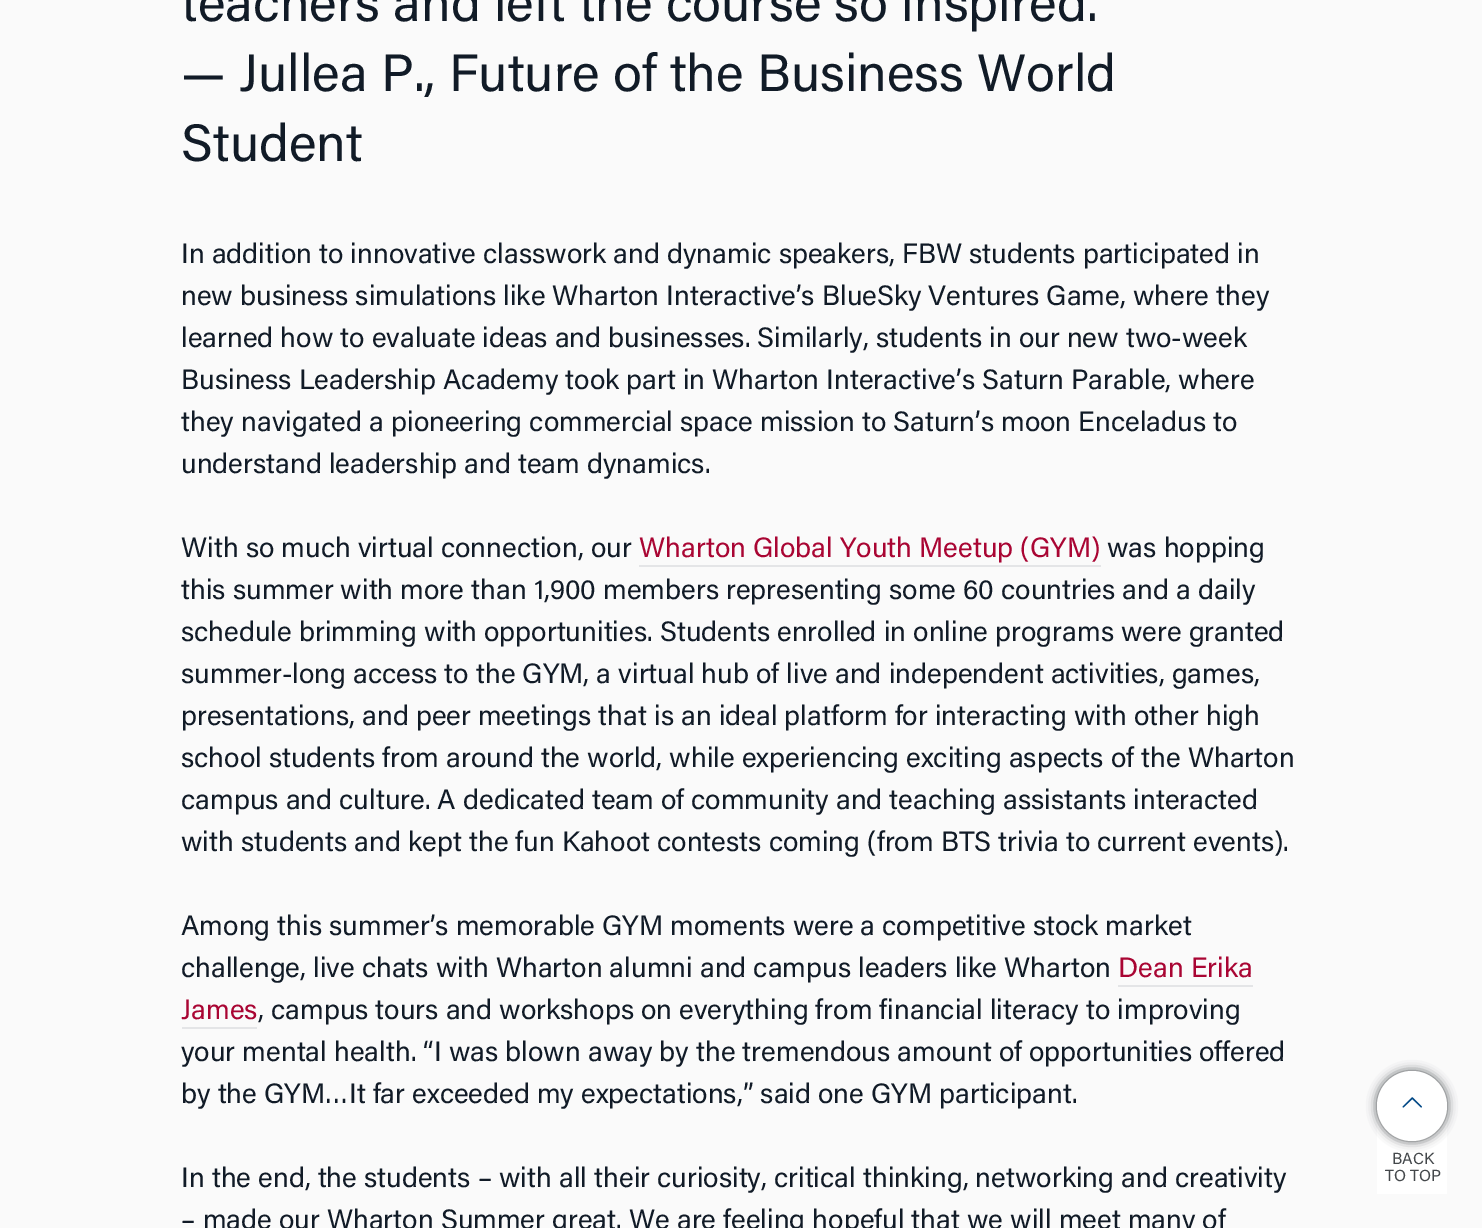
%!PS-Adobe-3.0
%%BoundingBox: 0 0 1482 1228
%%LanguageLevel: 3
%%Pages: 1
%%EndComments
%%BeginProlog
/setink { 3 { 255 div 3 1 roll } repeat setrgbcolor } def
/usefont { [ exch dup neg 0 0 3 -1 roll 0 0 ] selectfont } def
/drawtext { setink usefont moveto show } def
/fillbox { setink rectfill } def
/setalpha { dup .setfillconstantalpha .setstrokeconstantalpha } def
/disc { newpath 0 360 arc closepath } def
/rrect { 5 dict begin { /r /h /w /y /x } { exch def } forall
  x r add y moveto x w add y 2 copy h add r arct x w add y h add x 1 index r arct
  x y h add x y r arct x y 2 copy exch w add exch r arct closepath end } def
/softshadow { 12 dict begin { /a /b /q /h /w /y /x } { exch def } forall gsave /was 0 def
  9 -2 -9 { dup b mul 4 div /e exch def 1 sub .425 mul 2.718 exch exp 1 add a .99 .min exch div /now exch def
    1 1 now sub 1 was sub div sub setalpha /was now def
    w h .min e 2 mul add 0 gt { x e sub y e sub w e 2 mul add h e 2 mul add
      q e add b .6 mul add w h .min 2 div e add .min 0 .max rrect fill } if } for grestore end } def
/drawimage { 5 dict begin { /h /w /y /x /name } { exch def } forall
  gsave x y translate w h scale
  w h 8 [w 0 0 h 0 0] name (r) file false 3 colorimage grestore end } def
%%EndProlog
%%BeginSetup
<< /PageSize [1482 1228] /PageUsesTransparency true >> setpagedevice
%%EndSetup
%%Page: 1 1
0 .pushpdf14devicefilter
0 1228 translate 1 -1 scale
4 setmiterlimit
0 0 1482 1228 250 250 250 fillbox
(teachers and left the course so inspired.) 181 21 /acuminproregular-Regular 52.5 17 27 39 drawtext
(— Jullea P., Future of the Business World) 181 91 /acuminproregular-Regular 52.5 17 27 39 drawtext
(Student) 181 161 /acuminproregular-Regular 52.5 17 27 39 drawtext
(In addition to innovative classwork and dynamic speakers, FBW students participated in) 181 263 /acuminproregular-Regular 28 17 27 39 drawtext
(new business simulations like Wharton Interactive’s BlueSky Ventures Game, where they) 181 305 /acuminproregular-Regular 28 17 27 39 drawtext
(learned how to evaluate ideas and businesses. Similarly, students in our new two-week) 181 347 /acuminproregular-Regular 28 17 27 39 drawtext
(Business Leadership Academy took part in Wharton Interactive’s Saturn Parable, where) 181 389 /acuminproregular-Regular 28 17 27 39 drawtext
(they navigated a pioneering commercial space mission to Saturn’s moon Enceladus to) 181 431 /acuminproregular-Regular 28 17 27 39 drawtext
(understand leadership and team dynamics.) 181 473 /acuminproregular-Regular 28 17 27 39 drawtext
(With so much virtual connection, our) 181 557 /acuminproregular-Regular 28 17 27 39 drawtext
(Wharton Global Youth Meetup \(GYM\)) 639 557 /acuminproregular-Regular 28 169 5 51 drawtext
639 565 462 2 228 229 231 fillbox
(was hopping) 1107 557 /acuminproregular-Regular 28 17 27 39 drawtext
(this summer with more than 1,900 members representing some 60 countries and a daily) 181 599 /acuminproregular-Regular 28 17 27 39 drawtext
(schedule brimming with opportunities. Students enrolled in online programs were granted) 181 641 /acuminproregular-Regular 28 17 27 39 drawtext
(summer-long access to the GYM, a virtual hub of live and independent activities, games,) 181 683 /acuminproregular-Regular 28 17 27 39 drawtext
(presentations, and peer meetings that is an ideal platform for interacting with other high) 181 725 /acuminproregular-Regular 28 17 27 39 drawtext
(school students from around the world, while experiencing exciting aspects of the Wharton) 181 767 /acuminproregular-Regular 28 17 27 39 drawtext
(campus and culture. A dedicated team of community and teaching assistants interacted) 181 809 /acuminproregular-Regular 28 17 27 39 drawtext
(with students and kept the fun Kahoot contests coming \(from BTS trivia to current events\).) 181 851 /acuminproregular-Regular 28 17 27 39 drawtext
(Among this summer’s memorable GYM moments were a competitive stock market) 181 935 /acuminproregular-Regular 28 17 27 39 drawtext
(challenge, live chats with Wharton alumni and campus leaders like Wharton) 181 977 /acuminproregular-Regular 28 17 27 39 drawtext
(Dean Erika) 1118 977 /acuminproregular-Regular 28 169 5 51 drawtext
1118 985 135 2 228 229 231 fillbox
(James) 181 1019 /acuminproregular-Regular 28 169 5 51 drawtext
182 1027 75 2 228 229 231 fillbox
(, campus tours and workshops on everything from financial literacy to improving) 258 1019 /acuminproregular-Regular 28 17 27 39 drawtext
(your mental health. “I was blown away by the tremendous amount of opportunities offered) 181 1061 /acuminproregular-Regular 28 17 27 39 drawtext
(by the GYM…It far exceeded my expectations,” said one GYM participant.) 181 1103 /acuminproregular-Regular 28 17 27 39 drawtext
(In the end, the students – with all their curiosity, critical thinking, networking and creativity) 181 1187 /acuminproregular-Regular 28 17 27 39 drawtext
(– made our Wharton Summer great. We are feeling hopeful that we will meet many of) 181 1229 /acuminproregular-Regular 28 17 27 39 drawtext
1377 1110 70 84 255 255 255 fillbox
68 72 75 setink
1377 1071 70 70 35 5 1 softshadow
255 255 255 setink
1412 1106 35 disc fill
(assets/img1.rgb) 1402 1097 20 11 drawimage
(BACK) 1392 1164 /acuminproregular-Regular 16 68 72 75 drawtext
(TO TOP) 1385 1181 /acuminproregular-Regular 16 68 72 75 drawtext
.poppdf14devicefilter showpage
%%EOF
